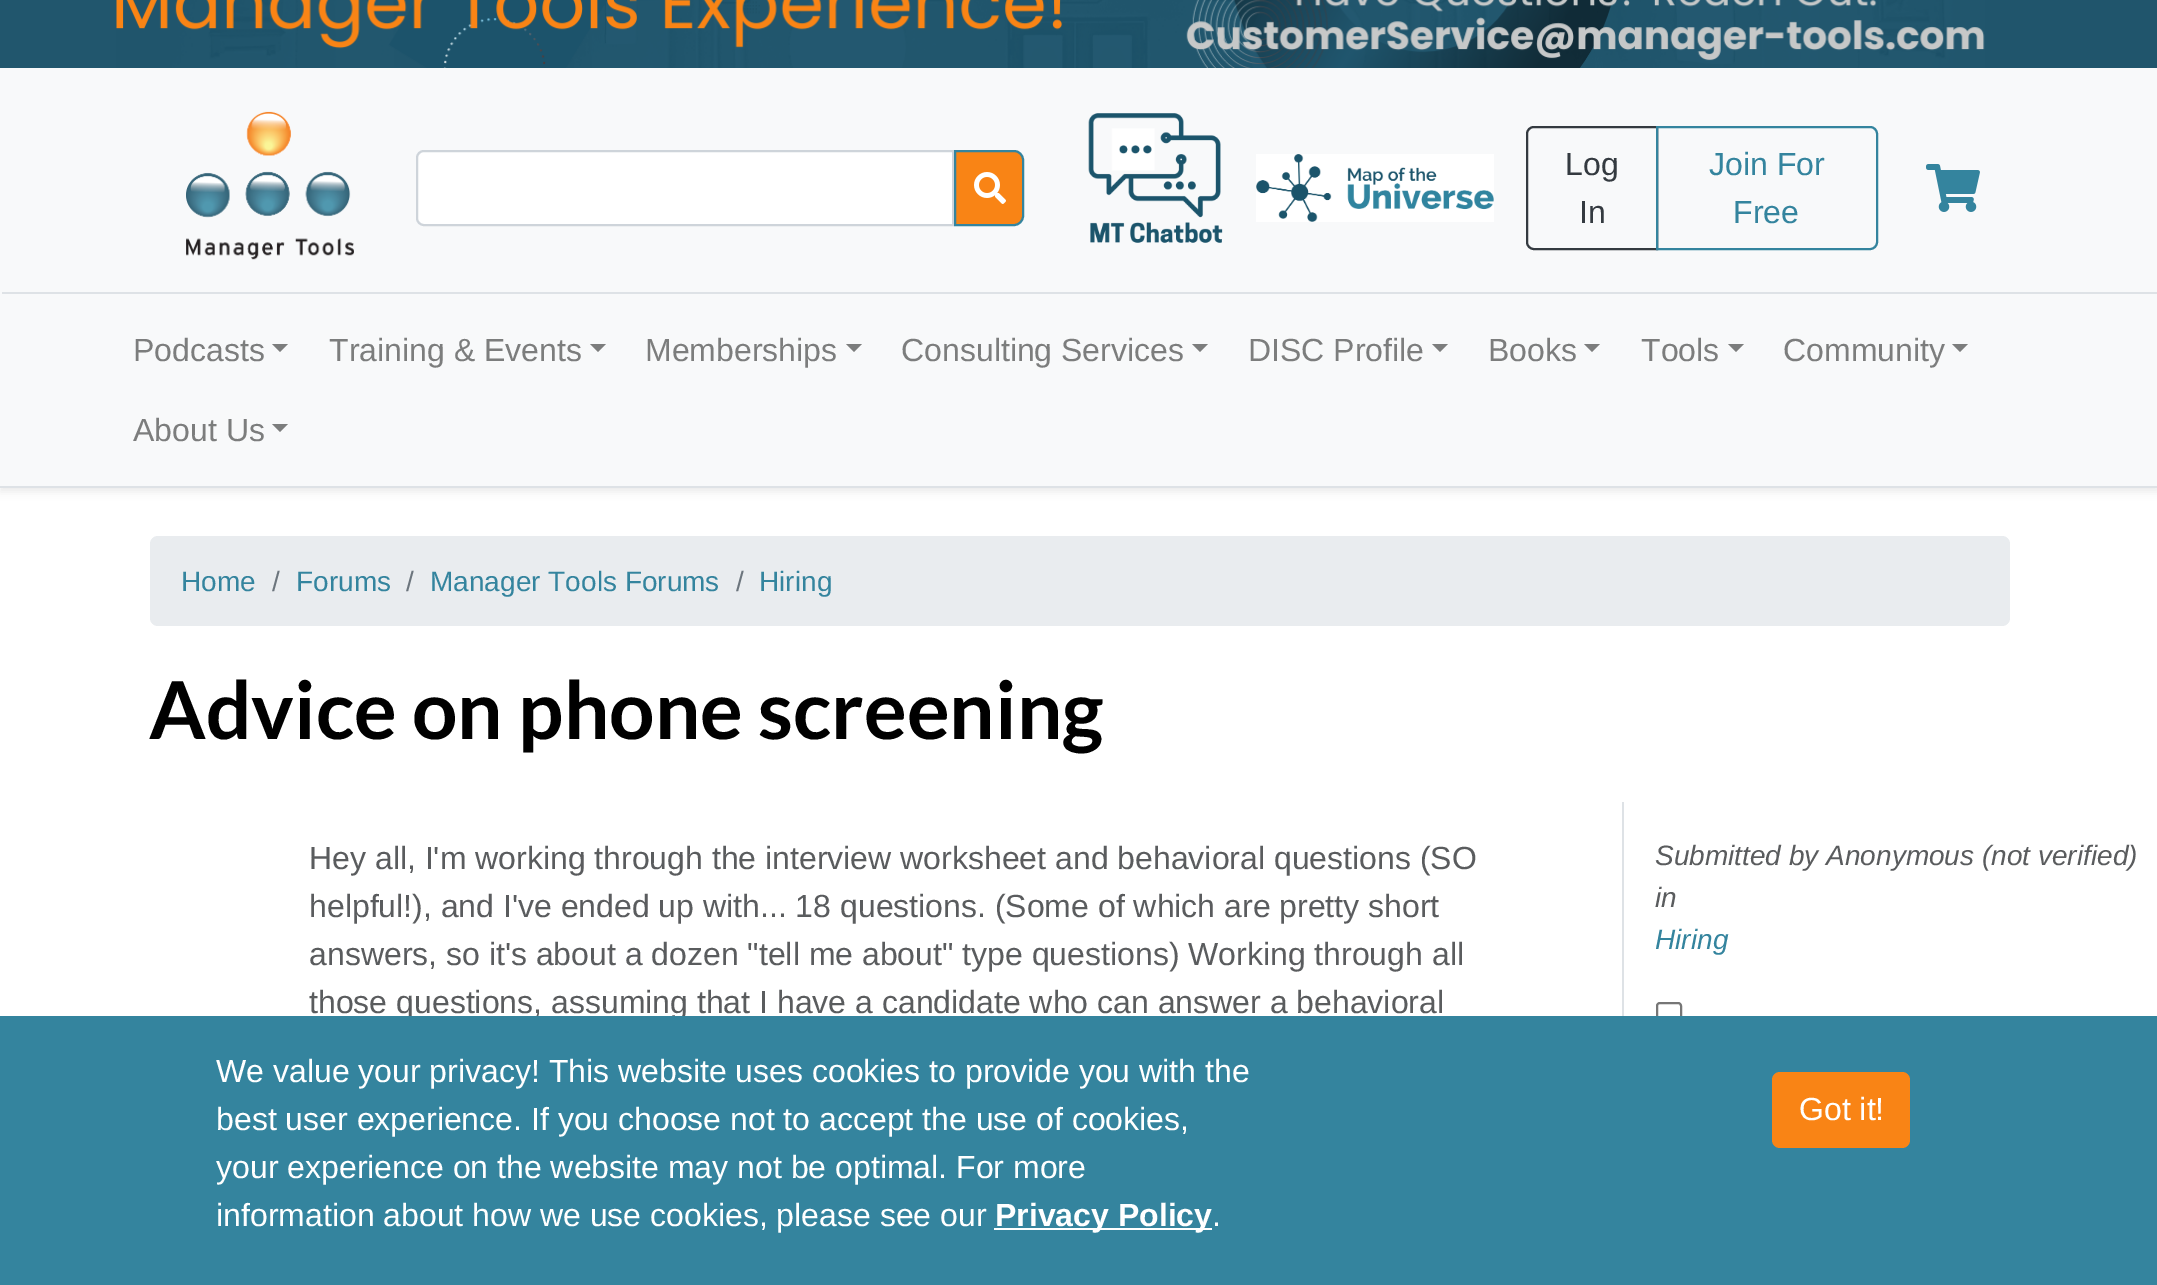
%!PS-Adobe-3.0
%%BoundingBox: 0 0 2157 1285
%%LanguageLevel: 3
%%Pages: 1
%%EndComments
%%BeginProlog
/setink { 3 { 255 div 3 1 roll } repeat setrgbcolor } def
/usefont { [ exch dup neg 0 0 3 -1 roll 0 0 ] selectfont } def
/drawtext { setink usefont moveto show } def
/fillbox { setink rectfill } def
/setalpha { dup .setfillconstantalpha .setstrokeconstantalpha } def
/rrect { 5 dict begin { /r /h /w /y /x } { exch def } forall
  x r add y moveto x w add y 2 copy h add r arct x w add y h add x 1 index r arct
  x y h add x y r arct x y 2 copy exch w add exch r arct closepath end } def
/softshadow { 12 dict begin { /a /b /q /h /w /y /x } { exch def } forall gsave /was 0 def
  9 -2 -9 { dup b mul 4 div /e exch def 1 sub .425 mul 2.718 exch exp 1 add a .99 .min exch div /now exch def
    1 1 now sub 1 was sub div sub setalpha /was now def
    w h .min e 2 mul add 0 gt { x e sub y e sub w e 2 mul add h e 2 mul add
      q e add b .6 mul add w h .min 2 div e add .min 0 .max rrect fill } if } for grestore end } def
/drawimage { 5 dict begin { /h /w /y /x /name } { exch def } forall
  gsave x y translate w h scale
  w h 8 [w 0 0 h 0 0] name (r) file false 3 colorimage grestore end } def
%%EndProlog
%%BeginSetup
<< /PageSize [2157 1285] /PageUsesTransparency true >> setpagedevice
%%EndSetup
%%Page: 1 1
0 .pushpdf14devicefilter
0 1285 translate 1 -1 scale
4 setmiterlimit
0 0 2157 1285 255 255 255 fillbox
gsave 0 0 moveto 2157 0 lineto 2157 68 lineto 0 68 lineto closepath clip newpath
<< /ShadingType 2 /ColorSpace /DeviceRGB /Coords [1036 232 1122 -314] /Extend [true true] /Function << /FunctionType 3 /Domain [0 1] /Functions [<< /FunctionType 2 /Domain [0 1] /C0 [0.129 0.337 0.427] /C1 [0.129 0.337 0.427] /N 1 >> << /FunctionType 2 /Domain [0 1] /C0 [0.125 0.333 0.424] /C1 [0.125 0.333 0.424] /N 1 >>] /Bounds [0.5] /Encode [0 1 0 1] >> >> shfill grestore
(assets/img1.rgb) 116 0 1869 68 drawimage
0 0 0 setink
0 72 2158 420 0 4 0.07 softshadow
0 68 2157 418 248 249 250 fillbox
0 486 2157 2 222 226 230 fillbox
(assets/img2.rgb) 186 111 168 149 drawimage
255 255 255 setink
424 151 moveto 953 151 lineto 953 225 lineto 424 225 lineto 420 225 417 222 417 218 curveto 417 158 lineto 417 154 420 151 424 151 curveto closepath gsave fill grestore
206 212 218 setink
2 setlinewidth
stroke
249 132 21 setink
955 151 moveto 1014 151 lineto 1019 151 1023 155 1023 160 curveto 1023 216 lineto 1023 221 1019 225 1014 225 curveto 955 225 lineto closepath gsave fill grestore
52 132 158 setink
stroke
(assets/img3.rgb) 974 172 32 32 drawimage
(assets/img4.rgb) 1088 113 135 130 drawimage
(assets/img5.rgb) 1256 154 238 68 drawimage
52 58 64 setink
1534 127 moveto 1657 127 lineto 1657 249 lineto 1534 249 lineto 1530 249 1527 246 1527 242 curveto 1527 134 lineto 1527 130 1530 127 1534 127 curveto closepath stroke
(Log) 1565 175 /LiberationSans-Regular 32 52 58 64 drawtext
(In) 1579 223 /LiberationSans-Regular 32 52 58 64 drawtext
52 132 158 setink
1657 127 moveto 1870 127 lineto 1874 127 1877 130 1877 134 curveto 1877 242 lineto 1877 246 1874 249 1870 249 curveto 1657 249 lineto closepath stroke
(Join For) 1709 175 /LiberationSans-Regular 32 52 132 158 drawtext
(Free) 1733 223 /LiberationSans-Regular 32 52 132 158 drawtext
(assets/img6.rgb) 1926 164 54 48 drawimage
2 292 2155 2 222 226 230 fillbox
(Podcasts) 133 361 /LiberationSans-Regular 32 124 125 125 drawtext
272 344 moveto 288 344 lineto 280 352 lineto closepath fill
(Training & Events) 329 361 /LiberationSans-Regular 32 124 125 125 drawtext
590 344 moveto 606 344 lineto 598 352 lineto closepath fill
(Memberships) 645 361 /LiberationSans-Regular 32 124 125 125 drawtext
846 344 moveto 862 344 lineto 854 352 lineto closepath fill
(Consulting Services) 901 361 /LiberationSans-Regular 32 124 125 125 drawtext
1192 344 moveto 1208 344 lineto 1200 352 lineto closepath fill
(DISC Profile) 1248 361 /LiberationSans-Regular 32 124 125 125 drawtext
1432 344 moveto 1448 344 lineto 1440 352 lineto closepath fill
(Books) 1488 361 /LiberationSans-Regular 32 124 125 125 drawtext
1584 344 moveto 1600 344 lineto 1592 352 lineto closepath fill
(Tools) 1641 361 /LiberationSans-Regular 32 124 125 125 drawtext
1728 344 moveto 1744 344 lineto 1736 352 lineto closepath fill
(Community) 1783 361 /LiberationSans-Regular 32 124 125 125 drawtext
1952 344 moveto 1968 344 lineto 1960 352 lineto closepath fill
(About Us) 133 441 /LiberationSans-Regular 32 124 125 125 drawtext
272 424 moveto 288 424 lineto 280 432 lineto closepath fill
233 236 239 setink
150 536 1860 90 8 rrect fill
(Home) 181 591 /LiberationSans-Regular 28 52 132 158 drawtext
(/) 272 591 /LiberationSans-Regular 28 108 117 125 drawtext
(Forums) 296 591 /LiberationSans-Regular 28 52 132 158 drawtext
(/) 406 591 /LiberationSans-Regular 28 108 117 125 drawtext
(Manager Tools Forums) 430 591 /LiberationSans-Regular 28 52 132 158 drawtext
(/) 736 591 /LiberationSans-Regular 28 108 117 125 drawtext
(Hiring) 759 591 /LiberationSans-Regular 28 52 132 158 drawtext
(Advice on phone screening) 149 739 /Lato-Bold 80 0 0 0 drawtext
(Hey all, I'm working through the interview worksheet and behavioral questions \(SO) 309 869 /LiberationSans-Regular 32 90 92 94 drawtext
(helpful!\), and I've ended up with... 18 questions. \(Some of which are pretty short) 309 917 /LiberationSans-Regular 32 90 92 94 drawtext
(answers, so it's about a dozen "tell me about" type questions\) Working through all) 309 965 /LiberationSans-Regular 32 90 92 94 drawtext
(those questions, assuming that I have a candidate who can answer a behavioral) 309 1013 /LiberationSans-Regular 32 90 92 94 drawtext
1622 802 2 214 222 226 230 fillbox
(Submitted by Anonymous \(not verified\)) 1655 865 /LiberationSans-Italic 28 90 92 94 drawtext
(in) 1655 907 /LiberationSans-Italic 28 90 92 94 drawtext
(Hiring) 1655 949 /LiberationSans-Italic 28 52 132 158 drawtext
118 118 118 setink
1657 1003 24 24 3 rrect stroke
0 1016 2157 269 52 132 158 fillbox
(We value your privacy! This website uses cookies to provide you with the) 216 1082 /LiberationSans-Regular 32 255 255 255 drawtext
(best user experience. If you choose not to accept the use of cookies,) 216 1130 /LiberationSans-Regular 32 255 255 255 drawtext
(your experience on the website may not be optimal. For more) 216 1178 /LiberationSans-Regular 32 255 255 255 drawtext
(information about how we use cookies, please see our) 216 1226 /LiberationSans-Regular 32 255 255 255 drawtext
994 1228 218 2 255 255 255 fillbox
(Privacy Policy) 995 1226 /LiberationSans-Bold 32 255 255 255 drawtext
(.) 1212 1226 /LiberationSans-Regular 32 255 255 255 drawtext
249 132 21 setink
1772 1072 138 76 8 rrect fill
(Got it!) 1799 1120 /LiberationSans-Regular 32 255 255 255 drawtext
.poppdf14devicefilter showpage
%%EOF
